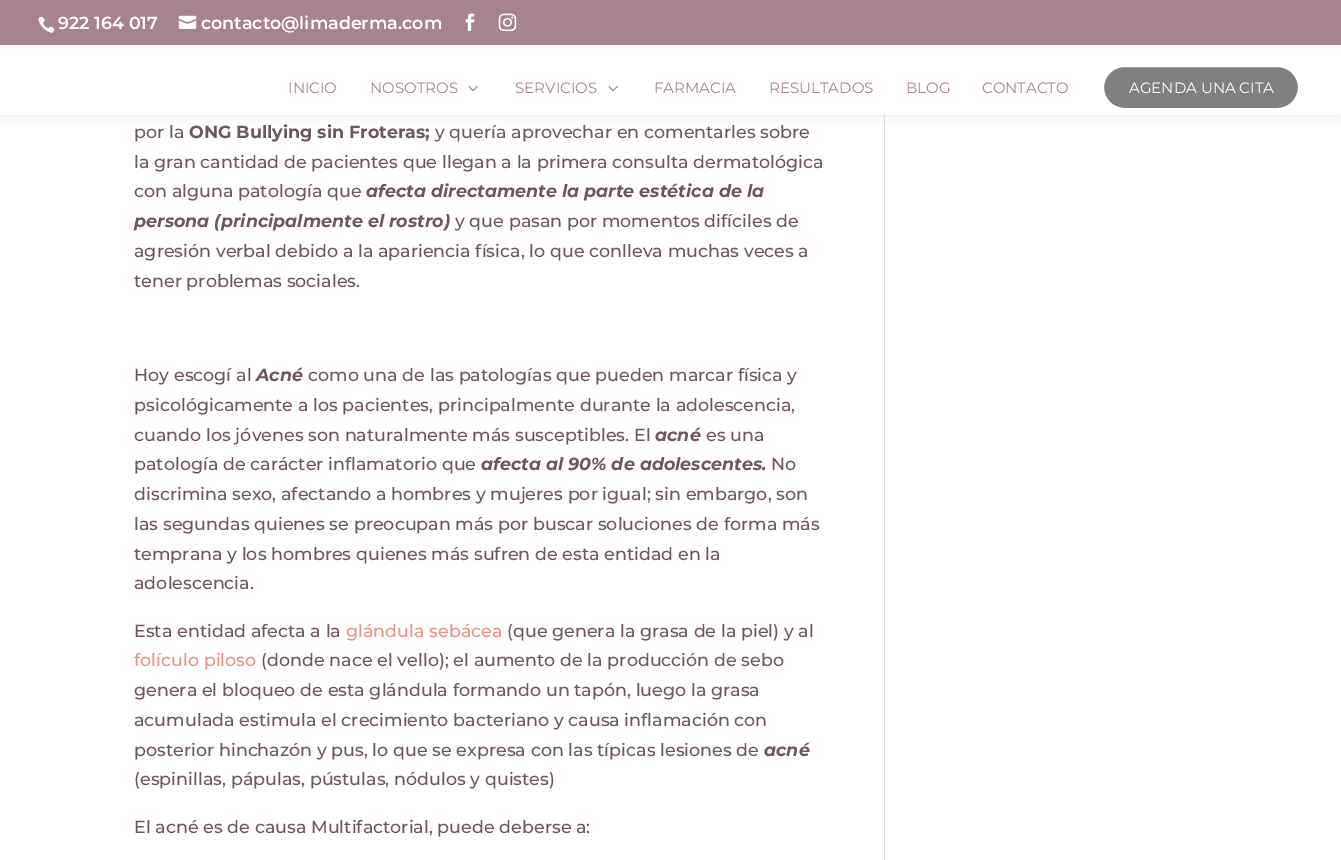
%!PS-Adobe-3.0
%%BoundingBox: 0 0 1341 860
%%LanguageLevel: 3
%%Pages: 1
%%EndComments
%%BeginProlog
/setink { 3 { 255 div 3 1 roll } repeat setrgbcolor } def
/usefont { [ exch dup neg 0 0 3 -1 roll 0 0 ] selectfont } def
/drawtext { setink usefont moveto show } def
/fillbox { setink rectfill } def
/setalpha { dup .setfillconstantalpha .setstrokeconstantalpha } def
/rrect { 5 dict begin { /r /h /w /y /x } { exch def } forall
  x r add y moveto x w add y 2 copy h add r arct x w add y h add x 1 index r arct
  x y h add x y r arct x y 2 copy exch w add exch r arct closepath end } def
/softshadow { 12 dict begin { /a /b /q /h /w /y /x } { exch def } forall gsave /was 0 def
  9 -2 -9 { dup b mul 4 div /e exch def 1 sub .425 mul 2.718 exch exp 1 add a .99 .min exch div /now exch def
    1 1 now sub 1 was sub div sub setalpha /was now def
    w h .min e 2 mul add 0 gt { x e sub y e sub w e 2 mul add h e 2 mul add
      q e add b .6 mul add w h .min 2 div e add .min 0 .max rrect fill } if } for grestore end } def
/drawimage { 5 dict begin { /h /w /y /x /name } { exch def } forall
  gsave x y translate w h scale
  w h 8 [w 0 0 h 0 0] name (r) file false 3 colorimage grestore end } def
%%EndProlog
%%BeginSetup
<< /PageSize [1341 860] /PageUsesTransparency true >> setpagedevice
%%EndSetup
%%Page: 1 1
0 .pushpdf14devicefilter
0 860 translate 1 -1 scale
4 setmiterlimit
0 0 1341 860 255 255 255 fillbox
884 115 1 745 226 226 226 fillbox
0 0 0 setink
0 45 1341 70 0 4.5 0.1 softshadow
0 0 1341 45 165 131 144 fillbox
(assets/img1.rgb) 38 16 17 17 drawimage
(922 164 017) 58 29 /Montserrat-SemiBold 17.5 255 255 255 drawtext
(assets/img2.rgb) 178 15 19 14 drawimage
(contacto@limaderma.com) 201 29 /Montserrat-SemiBold 17.5 255 255 255 drawtext
(assets/img3.rgb) 465 13 10 19 drawimage
(assets/img4.rgb) 498 13 19 19 drawimage
0 45 1341 70 255 255 255 fillbox
(INICIO) 288 93 /Montserrat-Regular 15 165 131 144 drawtext
(NOSOTROS) 370 93 /Montserrat-Regular 15 165 131 144 drawtext
(assets/img5.rgb) 468 86 10 6 drawimage
(SERVICIOS) 515 93 /Montserrat-Regular 15 165 131 144 drawtext
(assets/img5.rgb) 608 86 10 6 drawimage
(FARMACIA) 654 93 /Montserrat-Regular 15 165 131 144 drawtext
(RESULTADOS) 769 93 /Montserrat-Regular 15 165 131 144 drawtext
(BLOG) 906 93 /Montserrat-Regular 15 165 131 144 drawtext
(CONTACTO) 982 93 /Montserrat-Regular 15 165 131 144 drawtext
128 128 128 setink
1102.5 65.5 197 44 22 rrect gsave fill grestore
255 255 255 setink
3 setlinewidth
stroke
(AGENDA UNA CITA) 1129 93 /Montserrat-Regular 15 255 255 255 drawtext
(por la) 134 138 /Montserrat-Medium 17.5 109 85 100 drawtext
(ONG Bullying sin Froteras;) 189 138 /Montserrat-Bold 17.5 109 85 100 drawtext
(y quería aprovechar en comentarles sobre) 435 138 /Montserrat-Medium 17.5 109 85 100 drawtext
(la gran cantidad de pacientes que llegan a la primera consulta dermatológica) 134 168 /Montserrat-Medium 17.5 109 85 100 drawtext
(con alguna patología que) 134 197 /Montserrat-Medium 17.5 109 85 100 drawtext
(afecta directamente la parte estética de la) 366 197 /Montserrat-BoldItalic 17.5 109 85 100 drawtext
(persona \(principalmente el rostro\)) 134 227 /Montserrat-BoldItalic 17.5 109 85 100 drawtext
(y que pasan por momentos difíciles de) 455 227 /Montserrat-Medium 17.5 109 85 100 drawtext
(agresión verbal debido a la apariencia física, lo que conlleva muchas veces a) 134 257 /Montserrat-Medium 17.5 109 85 100 drawtext
(tener problemas sociales.) 134 287 /Montserrat-Medium 17.5 109 85 100 drawtext
(Hoy escogí al) 134 381 /Montserrat-Medium 17.5 109 85 100 drawtext
(Acné) 256 381 /Montserrat-BoldItalic 17.5 109 85 100 drawtext
(como una de las patologías que pueden marcar física y) 308 381 /Montserrat-Medium 17.5 109 85 100 drawtext
(psicológicamente a los pacientes, principalmente durante la adolescencia,) 134 411 /Montserrat-Medium 17.5 109 85 100 drawtext
(cuando los jóvenes son naturalmente más susceptibles. El) 134 441 /Montserrat-Medium 17.5 109 85 100 drawtext
(acné) 655 441 /Montserrat-BoldItalic 17.5 109 85 100 drawtext
(es una) 706 441 /Montserrat-Medium 17.5 109 85 100 drawtext
(patología de carácter inflamatorio que) 134 470 /Montserrat-Medium 17.5 109 85 100 drawtext
(afecta al 90% de adolescentes.) 481 470 /Montserrat-BoldItalic 17.5 109 85 100 drawtext
(No) 771 470 /Montserrat-Medium 17.5 109 85 100 drawtext
(discrimina sexo, afectando a hombres y mujeres por igual; sin embargo, son) 134 500 /Montserrat-Medium 17.5 109 85 100 drawtext
(las segundas quienes se preocupan más por buscar soluciones de forma más) 134 530 /Montserrat-Medium 17.5 109 85 100 drawtext
(temprana y los hombres quienes más sufren de esta entidad en la) 134 560 /Montserrat-Medium 17.5 109 85 100 drawtext
(adolescencia.) 134 589 /Montserrat-Medium 17.5 109 85 100 drawtext
(Esta entidad afecta a la) 134 637 /Montserrat-Medium 17.5 109 85 100 drawtext
(glándula sebácea) 346 637 /Montserrat-Medium 17.5 232 145 137 drawtext
(\(que genera la grasa de la piel\) y al) 507 637 /Montserrat-Medium 17.5 109 85 100 drawtext
(folículo piloso) 134 666 /Montserrat-Medium 17.5 232 145 137 drawtext
(\(donde nace el vello\); el aumento de la producción de sebo) 261 666 /Montserrat-Medium 17.5 109 85 100 drawtext
(genera el bloqueo de esta glándula formando un tapón, luego la grasa) 134 696 /Montserrat-Medium 17.5 109 85 100 drawtext
(acumulada estimula el crecimiento bacteriano y causa inflamación con) 134 726 /Montserrat-Medium 17.5 109 85 100 drawtext
(posterior hinchazón y pus, lo que se expresa con las típicas lesiones de) 134 756 /Montserrat-Medium 17.5 109 85 100 drawtext
(acné) 764 756 /Montserrat-BoldItalic 17.5 109 85 100 drawtext
(\(espinillas, pápulas, pústulas, nódulos y quistes\)) 134 785 /Montserrat-Medium 17.5 109 85 100 drawtext
(El acné es de causa Multifactorial, puede deberse a:) 134 833 /Montserrat-Medium 17.5 109 85 100 drawtext
.poppdf14devicefilter showpage
%%EOF
